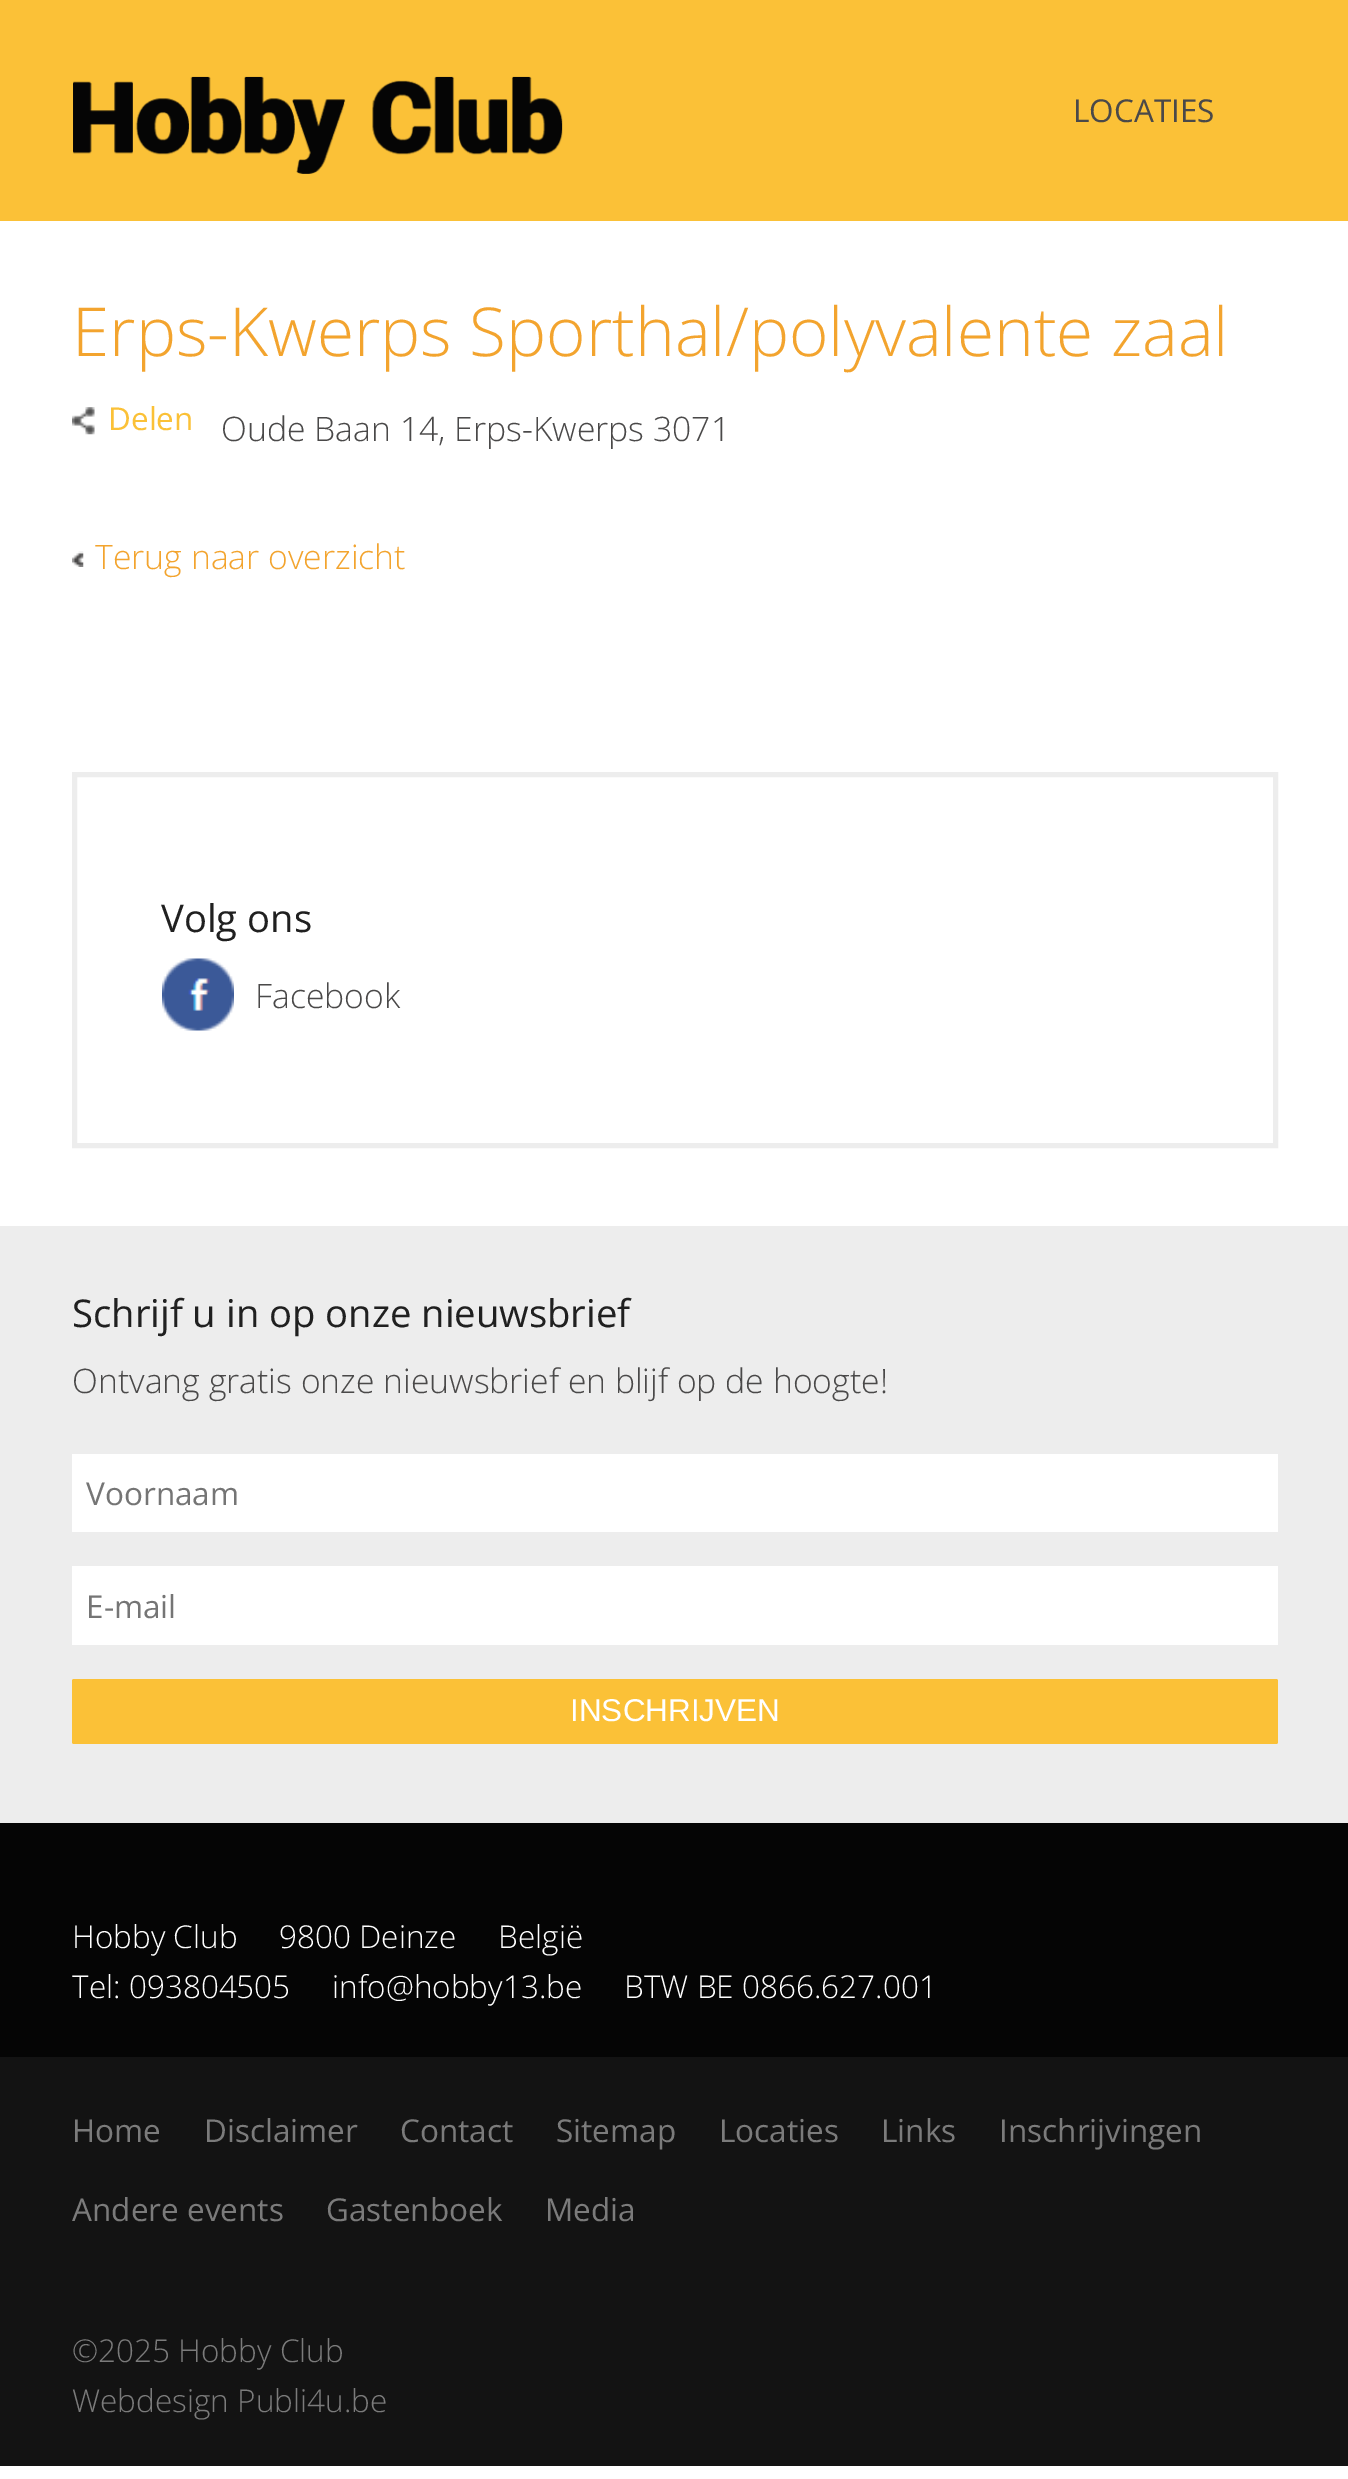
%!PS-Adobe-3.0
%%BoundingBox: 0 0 1348 2479
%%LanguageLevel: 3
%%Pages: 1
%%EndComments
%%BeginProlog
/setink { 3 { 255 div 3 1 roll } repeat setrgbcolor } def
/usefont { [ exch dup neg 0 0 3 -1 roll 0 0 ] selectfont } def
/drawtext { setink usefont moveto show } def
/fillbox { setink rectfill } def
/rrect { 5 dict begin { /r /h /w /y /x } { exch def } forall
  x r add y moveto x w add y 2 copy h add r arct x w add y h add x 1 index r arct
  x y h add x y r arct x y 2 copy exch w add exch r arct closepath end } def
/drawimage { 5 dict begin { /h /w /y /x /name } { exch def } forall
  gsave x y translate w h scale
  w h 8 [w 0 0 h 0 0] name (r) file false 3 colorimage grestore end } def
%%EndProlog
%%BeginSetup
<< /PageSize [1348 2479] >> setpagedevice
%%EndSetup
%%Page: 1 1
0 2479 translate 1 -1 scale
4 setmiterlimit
0 0 1348 2479 255 255 255 fillbox
0 0 1348 221 251 193 55 fillbox
(assets/img1.rgb) 73 76 490 98 drawimage
(LOCATIES) 1073 122 /OpenSans-Regular 31.5 74 73 73 drawtext
(Erps-Kwerps Sporthal/polyvalente zaal) 72 356 /OpenSans-Light 67.5 243 164 46 drawtext
(assets/img2.rgb) 72 407 23 28 drawimage
(Delen) 108 430 /OpenSans-Regular 31.5 251 193 55 drawtext
(Oude Baan 14, Erps-Kwerps 3071) 221 441 /OpenSans-Light 33.75 74 73 73 drawtext
(assets/img3.rgb) 72 551 12 16 drawimage
(Terug naar overzicht) 95 569 /OpenSans-Light 33.75 243 164 46 drawtext
237 237 237 setink
5 setlinewidth
74.5 774.5 1201 371 rectstroke
(Volg ons) 161 932 /OpenSans-Regular 38.25 32 32 32 drawtext
(assets/img4.rgb) 162 958 72 73 drawimage
(Facebook) 255 1008 /OpenSans-Light 33.75 74 73 73 drawtext
0 1226 1348 597 237 237 237 fillbox
(Schrijf u in op onze nieuwsbrief) 72 1327 /OpenSans-Regular 38.25 32 32 32 drawtext
(Ontvang gratis onze nieuwsbrief en blijf op de hoogte!) 72 1393 /OpenSans-Light 33.75 74 73 73 drawtext
72 1454 1206 78 255 255 255 fillbox
(Voornaam) 86 1505 /OpenSans-Regular 31.5 117 117 117 drawtext
72 1566 1206 79 255 255 255 fillbox
(E-mail) 86 1618 /OpenSans-Regular 31.5 117 117 117 drawtext
251 193 55 setink
72 1679 1206 65 2 rrect fill
(INSCHRIJVEN) 570 1721 /LiberationSans-Regular 31.5 255 255 255 drawtext
0 1823 1348 234 5 5 5 fillbox
(Hobby Club) 72 1948 /OpenSans-Light 31.5 255 255 255 drawtext
(9800 Deinze) 279 1948 /OpenSans-Light 31.5 255 255 255 drawtext
(België) 498 1948 /OpenSans-Light 31.5 255 255 255 drawtext
(Tel: 093804505) 72 1998 /OpenSans-Light 31.5 255 255 255 drawtext
(info@hobby13.be) 332 1998 /OpenSans-Light 31.5 255 255 255 drawtext
(BTW BE 0866.627.001) 624 1998 /OpenSans-Light 31.5 255 255 255 drawtext
0 2057 1348 409 19 19 19 fillbox
(Home) 72 2142 /OpenSans-Regular 31.5 123 123 123 drawtext
(Disclaimer) 204 2142 /OpenSans-Regular 31.5 123 123 123 drawtext
(Contact) 400 2142 /OpenSans-Regular 31.5 123 123 123 drawtext
(Sitemap) 556 2142 /OpenSans-Regular 31.5 123 123 123 drawtext
(Locaties) 719 2142 /OpenSans-Regular 31.5 123 123 123 drawtext
(Links) 881 2142 /OpenSans-Regular 31.5 123 123 123 drawtext
(Inschrijvingen) 999 2142 /OpenSans-Regular 31.5 123 123 123 drawtext
(Andere events) 72 2221 /OpenSans-Regular 31.5 123 123 123 drawtext
(Gastenboek) 326 2221 /OpenSans-Regular 31.5 123 123 123 drawtext
(Media) 545 2221 /OpenSans-Regular 31.5 123 123 123 drawtext
(©2025 Hobby Club) 72 2362 /OpenSans-Light 31.5 123 123 123 drawtext
(Webdesign Publi4u.be) 72 2412 /OpenSans-Light 31.5 123 123 123 drawtext
showpage
%%EOF
